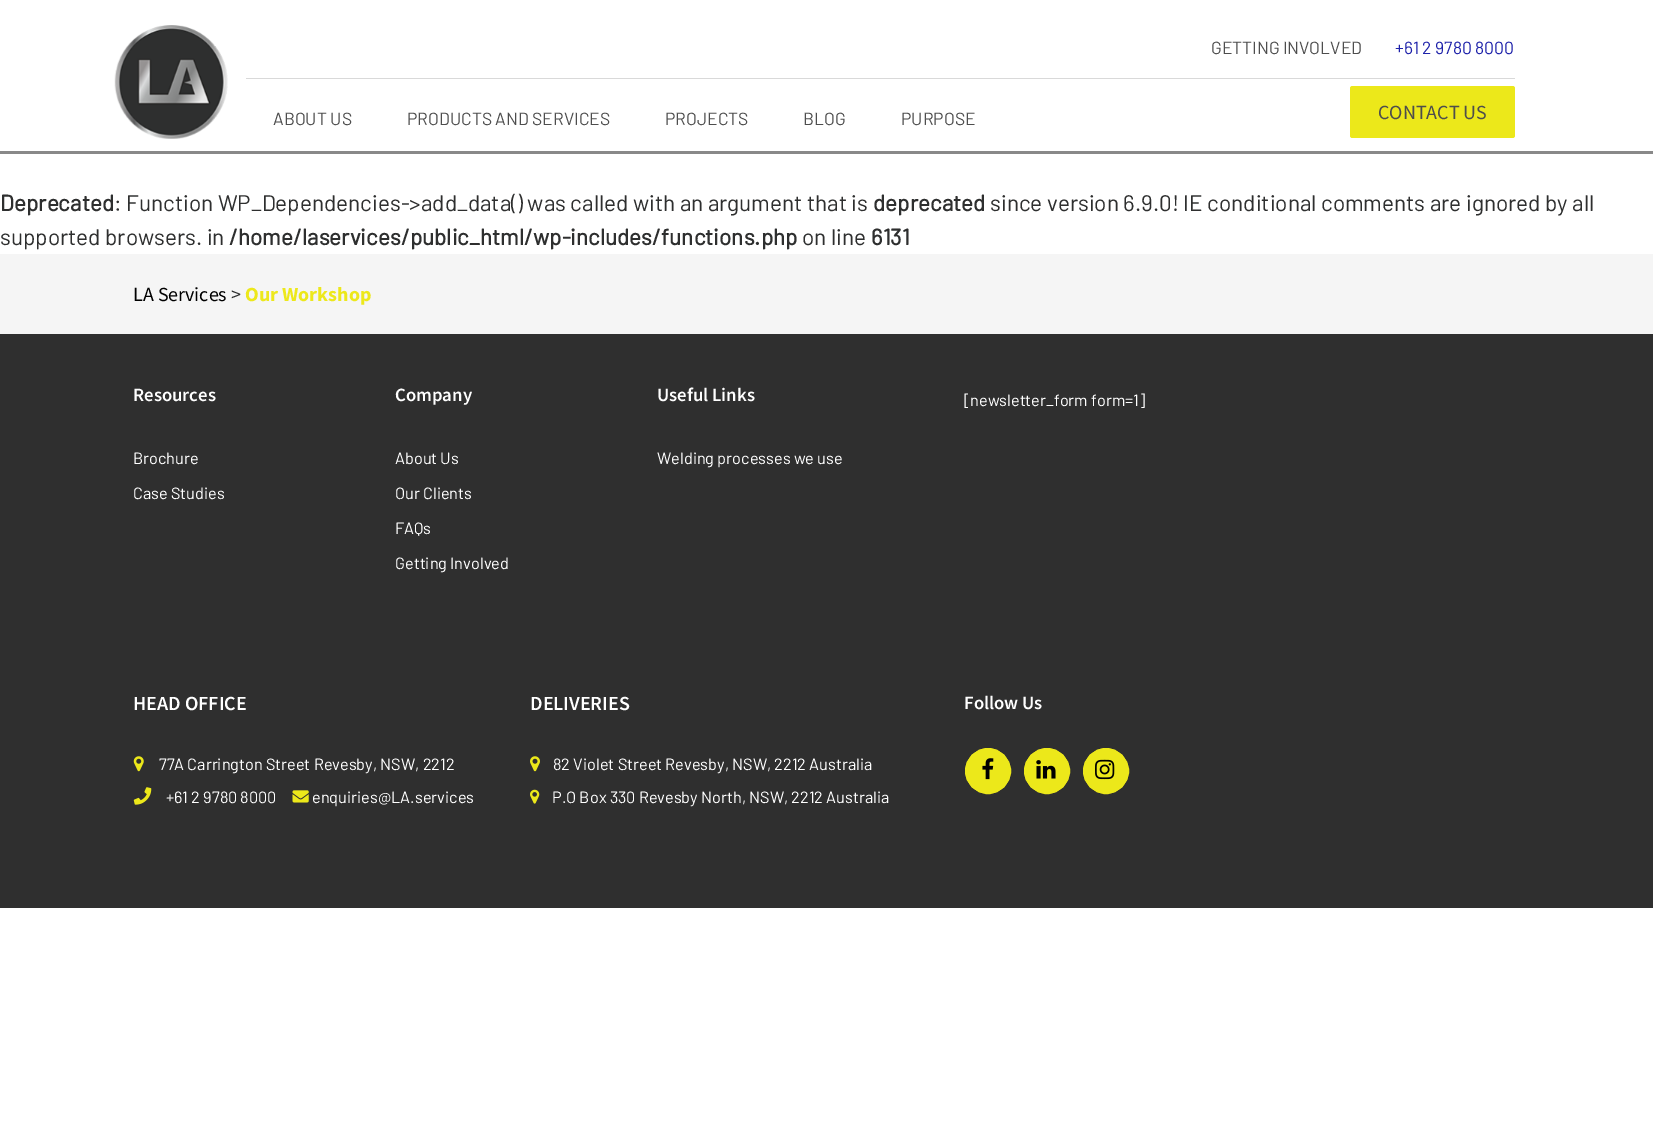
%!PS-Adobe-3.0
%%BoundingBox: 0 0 1653 1142
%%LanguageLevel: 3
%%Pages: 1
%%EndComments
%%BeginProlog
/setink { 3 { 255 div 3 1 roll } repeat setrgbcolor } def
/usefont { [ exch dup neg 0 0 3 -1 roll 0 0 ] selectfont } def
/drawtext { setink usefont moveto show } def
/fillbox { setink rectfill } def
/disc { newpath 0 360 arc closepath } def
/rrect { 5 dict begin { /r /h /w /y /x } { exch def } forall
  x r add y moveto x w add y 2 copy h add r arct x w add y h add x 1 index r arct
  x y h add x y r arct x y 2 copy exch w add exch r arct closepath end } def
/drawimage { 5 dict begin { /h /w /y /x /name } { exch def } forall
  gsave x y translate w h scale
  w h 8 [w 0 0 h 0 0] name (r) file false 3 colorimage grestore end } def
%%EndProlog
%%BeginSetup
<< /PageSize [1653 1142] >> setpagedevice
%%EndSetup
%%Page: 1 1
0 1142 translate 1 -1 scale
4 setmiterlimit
0 0 1653 1142 255 255 255 fillbox
0 151 1653 3 137 137 137 fillbox
(assets/img1.rgb) 114 25 114 114 drawimage
246 78 1269 1 217 217 217 fillbox
(GETTING INVOLVED) 1211 54 /Barlow-Regular 17.5 77 77 77 drawtext
(+61 2 9780 8000) 1395 54 /Barlow-Regular 17.5 30 34 170 drawtext
(ABOUT US) 273 125 /Barlow-Regular 17.5 77 77 77 drawtext
(PRODUCTS AND SERVICES) 407 125 /Barlow-Regular 17.5 77 77 77 drawtext
(PROJECTS) 665 125 /Barlow-Regular 17.5 77 77 77 drawtext
(BLOG) 803 125 /Barlow-Regular 17.5 77 77 77 drawtext
(PURPOSE) 901 125 /Barlow-Regular 17.5 77 77 77 drawtext
236 232 26 setink
1350 86 165 52 2.5 rrect fill
(CONTACT US) 1378 119 /SourceSansPro-Regular 20 77 77 77 drawtext
0 254 1653 80 245 245 245 fillbox
(LA Services) 133 301 /SourceSansPro-Regular 20 0 0 0 drawtext
(>) 231 301 /SourceSansPro-Regular 20 46 47 47 drawtext
(Our Workshop) 245 301 /SourceSansPro-Bold 20 237 232 27 drawtext
0 334 1653 574 47 47 47 fillbox
(Resources) 133 401 /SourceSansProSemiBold-SemiBold 18.75 255 255 255 drawtext
(Brochure) 133 464 /Barlow-Regular 16.25 255 255 255 drawtext
(Case Studies) 133 499 /Barlow-Regular 16.25 255 255 255 drawtext
(Company) 395 401 /SourceSansProSemiBold-SemiBold 18.75 255 255 255 drawtext
(About Us) 395 464 /Barlow-Regular 16.25 255 255 255 drawtext
(Our Clients) 395 499 /Barlow-Regular 16.25 255 255 255 drawtext
(FAQs) 395 534 /Barlow-Regular 16.25 255 255 255 drawtext
(Getting Involved) 395 569 /Barlow-Regular 16.25 255 255 255 drawtext
(Useful Links) 657 401 /SourceSansProSemiBold-SemiBold 18.75 255 255 255 drawtext
(Welding processes we use) 657 464 /Barlow-Regular 16.25 255 255 255 drawtext
([newsletter_form form=1]) 964 406 /Barlow-Regular 16.25 255 255 255 drawtext
(HEAD OFFICE) 133 710 /SourceSansProSemiBold-SemiBold 20 255 255 255 drawtext
(assets/img2.rgb) 133 756 11 16 drawimage
(77A Carrington Street Revesby, NSW, 2212) 159 770 /Barlow-Regular 16.25 255 255 255 drawtext
(assets/img3.rgb) 133 787 19 18 drawimage
(+61 2 9780 8000) 166 803 /Barlow-Regular 16.25 255 255 255 drawtext
(assets/img4.rgb) 292 790 17 13 drawimage
(enquiries@LA.services) 312 803 /Barlow-Regular 16.25 255 255 255 drawtext
(DELIVERIES) 530 710 /SourceSansProSemiBold-SemiBold 20 255 255 255 drawtext
(assets/img5.rgb) 530 756 10 16 drawimage
(82 Violet Street Revesby, NSW, 2212 Australia) 553 770 /Barlow-Regular 16.25 255 255 255 drawtext
(assets/img6.rgb) 530 789 10 15 drawimage
(P.O Box 330 Revesby North, NSW, 2212 Australia) 552 803 /Barlow-Regular 16.25 255 255 255 drawtext
(Follow Us) 964 709 /SourceSansProSemiBold-SemiBold 18.75 255 255 255 drawtext
236 232 26 setink
988 771 22.5 disc gsave fill grestore
stroke
(assets/img7.rgb) 982 758 12 22 drawimage
1047 771 22.5 disc gsave fill grestore
stroke
(assets/img8.rgb) 1036 760 20 19 drawimage
1106 771 22.5 disc gsave fill grestore
stroke
(assets/img9.rgb) 1095 759 20 21 drawimage
(Deprecated) 0 211 /Barlow-Bold 22.5 46 47 47 drawtext
(: Function WP_Dependencies->add_data\(\) was called with an argument that is) 114 211 /Barlow-Regular 22.5 46 47 47 drawtext
(deprecated) 873 211 /Barlow-Bold 22.5 46 47 47 drawtext
(since version 6.9.0! IE conditional comments are ignored by all) 990 211 /Barlow-Regular 22.5 46 47 47 drawtext
(supported browsers. in) 0 245 /Barlow-Regular 22.5 46 47 47 drawtext
(/home/laservices/public_html/wp-includes/functions.php) 229 245 /Barlow-Bold 22.5 46 47 47 drawtext
(on line) 802 245 /Barlow-Regular 22.5 46 47 47 drawtext
(6131) 871 245 /Barlow-Bold 22.5 46 47 47 drawtext
showpage
%%EOF
